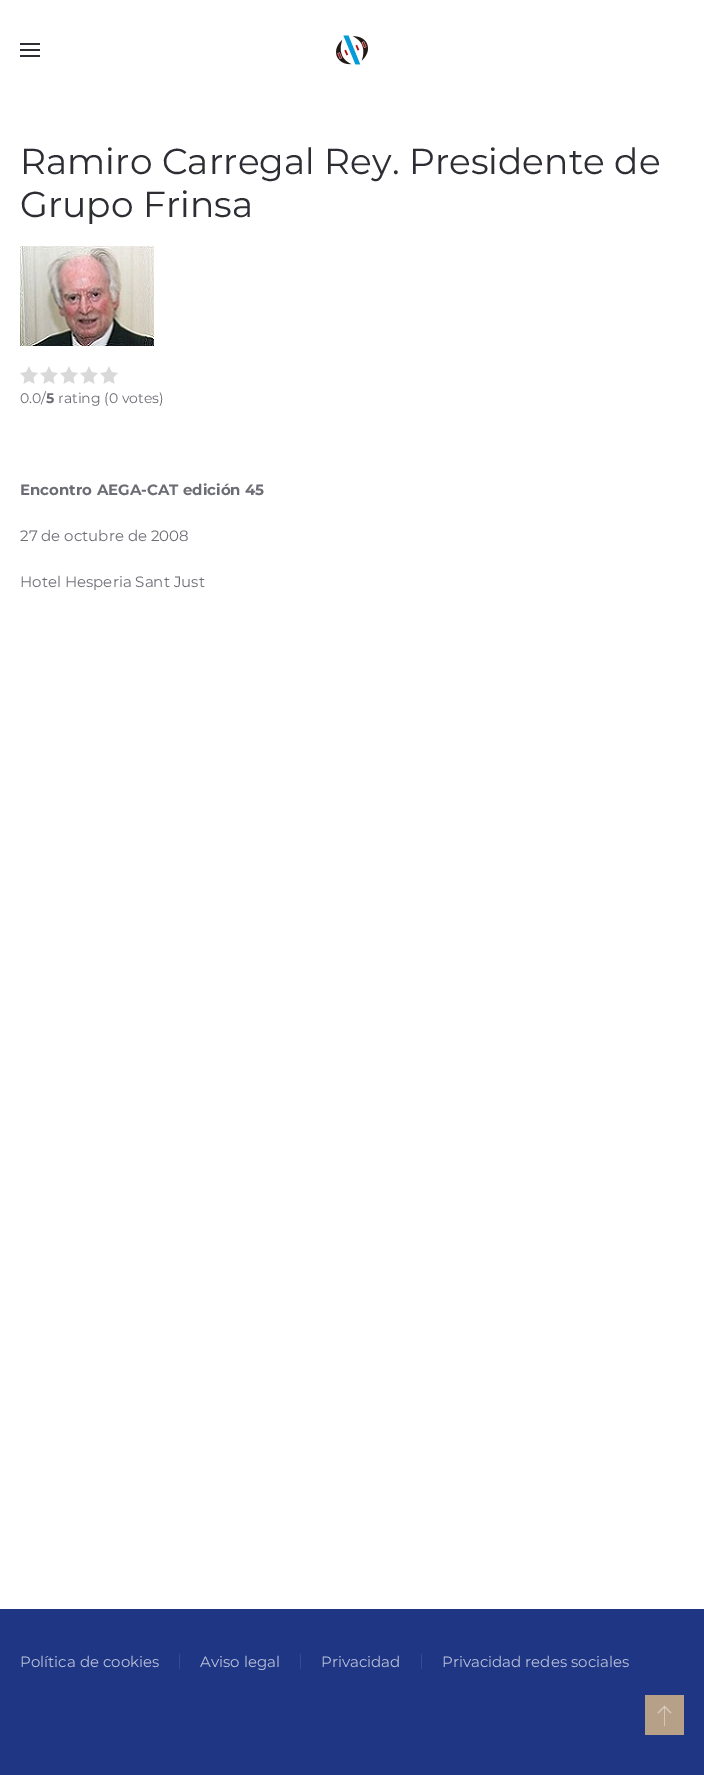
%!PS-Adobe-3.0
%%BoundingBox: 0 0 704 1775
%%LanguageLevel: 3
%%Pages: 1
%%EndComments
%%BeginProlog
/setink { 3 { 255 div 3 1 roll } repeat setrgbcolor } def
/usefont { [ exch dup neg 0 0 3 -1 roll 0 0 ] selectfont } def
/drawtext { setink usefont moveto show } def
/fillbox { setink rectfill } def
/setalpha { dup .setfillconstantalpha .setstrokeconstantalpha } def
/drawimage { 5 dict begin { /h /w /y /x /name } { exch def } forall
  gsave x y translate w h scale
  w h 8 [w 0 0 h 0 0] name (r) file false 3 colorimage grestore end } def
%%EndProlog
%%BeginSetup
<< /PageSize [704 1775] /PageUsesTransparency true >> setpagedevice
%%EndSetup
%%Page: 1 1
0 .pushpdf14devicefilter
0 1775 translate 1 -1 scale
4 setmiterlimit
0 0 704 1775 255 255 255 fillbox
20 43 20 2 45 46 51 fillbox
20 49 20 2 45 46 51 fillbox
20 55 20 2 45 46 51 fillbox
(assets/img1.rgb) 336 35 32 30 drawimage
(Ramiro Carregal Rey. Presidente de) 20 174 /Montserrat-Regular 36 45 46 51 drawtext
(Grupo Frinsa) 20 217 /Montserrat-Regular 36 45 46 51 drawtext
(assets/img2.rgb) 20 246 134 100 drawimage
(assets/img3.rgb) 20 366 98 18 drawimage
(0.0/) 20 403 /Montserrat-Regular 14 108 109 116 drawtext
(5) 46 403 /Montserrat-Bold 14 108 109 116 drawtext
(rating \(0 votes\)) 58 403 /Montserrat-Regular 14 108 109 116 drawtext
(Encontro AEGA-CAT edición 45) 20 495 /Montserrat-Bold 15 108 109 116 drawtext
(27 de octubre de 2008) 20 541 /Montserrat-Regular 15 108 109 116 drawtext
(Hotel Hesperia Sant Just) 20 587 /Montserrat-Regular 15 108 109 116 drawtext
0 1609 704 166 30 54 132 fillbox
(Política de cookies) 20 1667 /Montserrat-Regular 15 188 195 218 drawtext
179 1654 1 15 53 74 144 fillbox
(Aviso legal) 200 1667 /Montserrat-Regular 15 188 195 218 drawtext
300 1654 1 15 53 74 144 fillbox
(Privacidad) 321 1667 /Montserrat-Regular 15 188 195 218 drawtext
421 1654 1 15 53 74 144 fillbox
(Privacidad redes sociales) 442 1667 /Montserrat-Regular 15 188 195 218 drawtext
645 1695 39 40 183 160 136 fillbox
212 198 184 setink
1.1 setlinewidth
658 1713 moveto 664.5 1706.5 lineto 671 1713 lineto stroke
0.4 setalpha
664 1707 1 19 255 255 255 fillbox
.poppdf14devicefilter showpage
%%EOF
